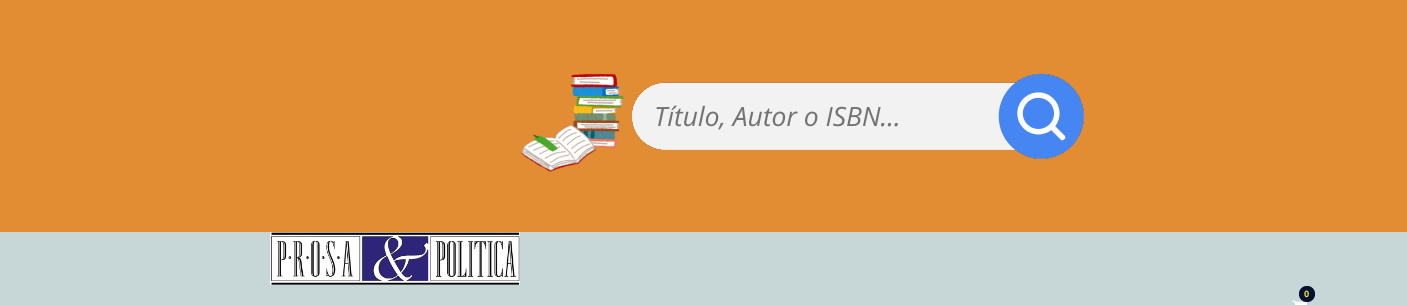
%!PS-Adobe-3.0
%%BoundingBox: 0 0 1407 305
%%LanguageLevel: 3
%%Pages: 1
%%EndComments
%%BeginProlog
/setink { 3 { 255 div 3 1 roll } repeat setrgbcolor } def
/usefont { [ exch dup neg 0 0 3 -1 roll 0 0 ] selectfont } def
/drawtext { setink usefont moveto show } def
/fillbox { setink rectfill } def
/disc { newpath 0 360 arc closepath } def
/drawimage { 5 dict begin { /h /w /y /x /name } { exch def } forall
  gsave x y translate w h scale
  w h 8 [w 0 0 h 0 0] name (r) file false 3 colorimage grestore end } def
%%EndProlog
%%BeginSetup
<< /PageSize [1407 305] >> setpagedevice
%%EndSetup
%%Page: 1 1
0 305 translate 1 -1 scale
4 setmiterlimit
0 0 1407 305 199 215 215 fillbox
0 0 1407 232 226 140 51 fillbox
(assets/img1.rgb) 521 73 563 99 drawimage
(assets/img2.rgb) 270 232 250 53 drawimage
(assets/img3.rgb) 1292 300 15 5 drawimage
3 17 50 setink
1307 294 8 disc fill
(0) 1304 297 /SourceSansPro-Bold 10 255 223 13 drawtext
showpage
%%EOF
